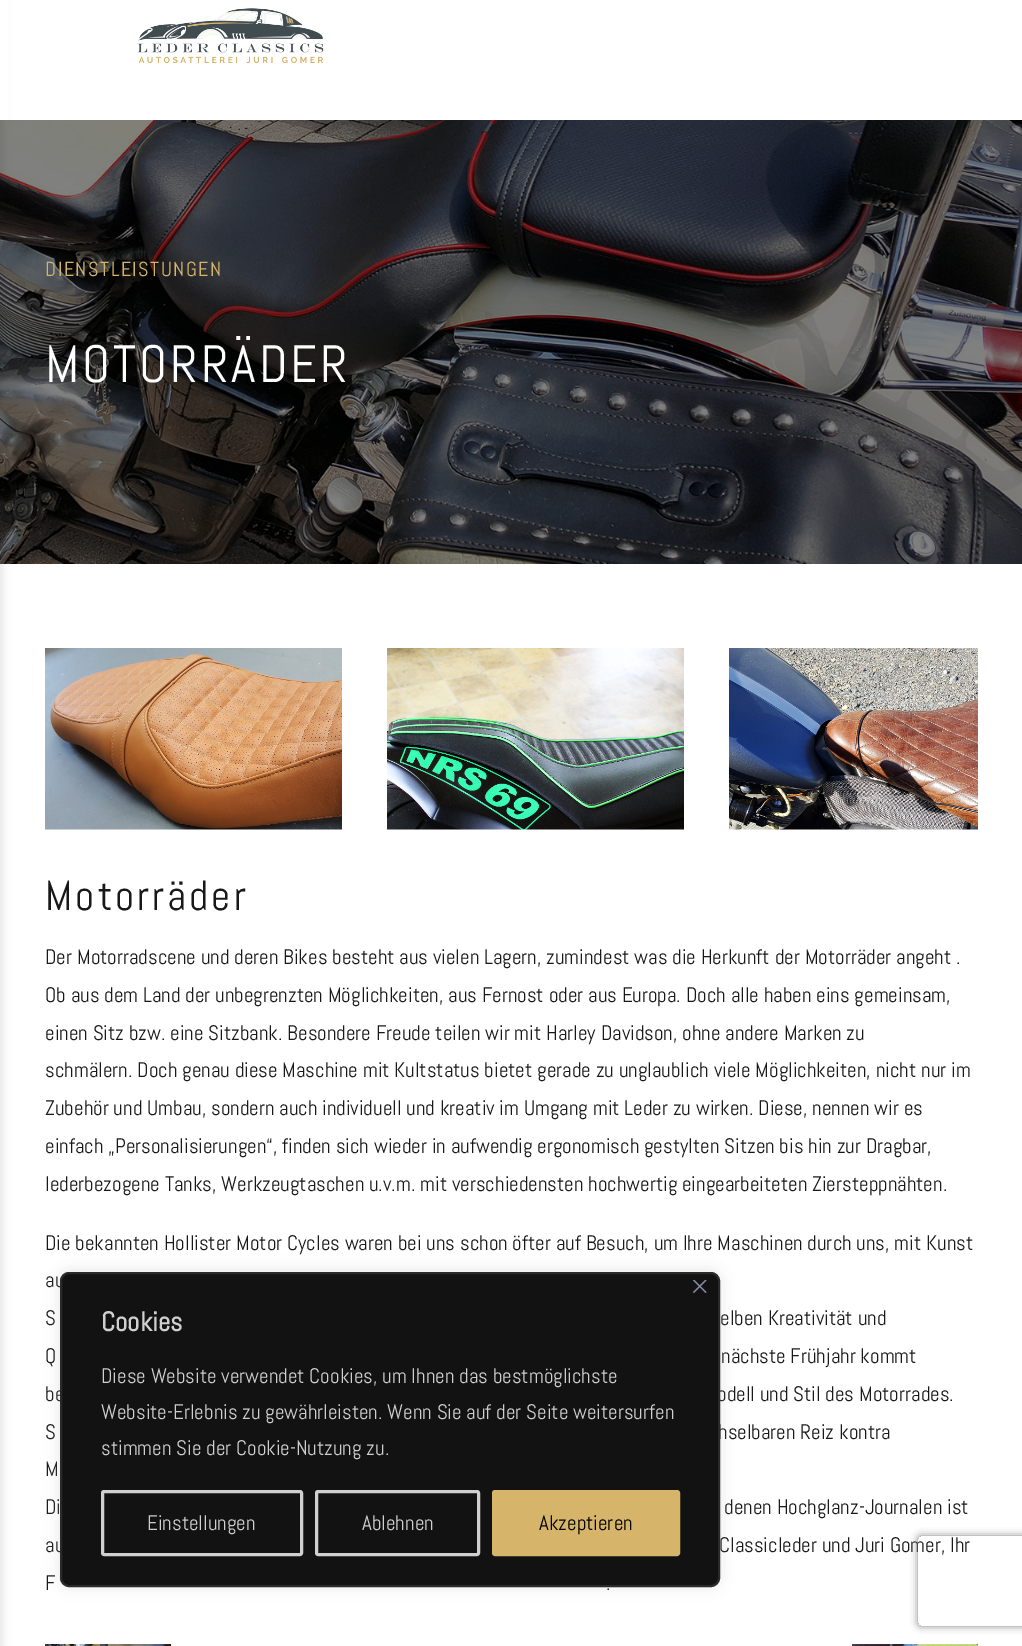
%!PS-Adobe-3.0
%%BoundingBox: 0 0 1022 1646
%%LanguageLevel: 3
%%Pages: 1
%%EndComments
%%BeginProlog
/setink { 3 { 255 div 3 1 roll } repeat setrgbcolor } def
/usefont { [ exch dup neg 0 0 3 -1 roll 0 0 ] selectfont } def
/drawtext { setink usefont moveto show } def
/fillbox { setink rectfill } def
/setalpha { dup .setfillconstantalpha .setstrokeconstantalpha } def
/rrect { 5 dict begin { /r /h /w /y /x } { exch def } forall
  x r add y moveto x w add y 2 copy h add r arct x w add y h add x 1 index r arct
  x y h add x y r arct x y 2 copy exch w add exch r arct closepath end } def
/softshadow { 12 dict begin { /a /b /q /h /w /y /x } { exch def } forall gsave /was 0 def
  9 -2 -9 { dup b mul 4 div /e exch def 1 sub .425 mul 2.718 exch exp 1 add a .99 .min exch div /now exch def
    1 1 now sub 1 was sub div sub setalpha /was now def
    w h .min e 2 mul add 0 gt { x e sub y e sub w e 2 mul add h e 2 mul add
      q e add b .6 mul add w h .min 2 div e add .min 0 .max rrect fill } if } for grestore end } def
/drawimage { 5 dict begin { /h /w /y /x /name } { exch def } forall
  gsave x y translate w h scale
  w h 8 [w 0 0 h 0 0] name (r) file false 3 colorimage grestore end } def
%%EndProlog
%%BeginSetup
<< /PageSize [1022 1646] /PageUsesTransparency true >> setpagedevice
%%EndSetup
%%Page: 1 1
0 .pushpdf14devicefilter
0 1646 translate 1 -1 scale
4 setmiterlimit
0 0 1022 1646 255 255 255 fillbox
(assets/img2.rgb) 0 120 1022 444 drawimage
0 0 0 setink
-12 0 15 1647 0 4 0.1 softshadow
0 0 8 120 255 255 255 fillbox
(assets/img1.rgb) 137 8 187 55 drawimage
/Abel-Regular 20.25 usefont
214 180 104 setink
45 276 moveto 1.5 0 (DIENSTLEISTUNGEN) ashow
/Abel-Regular 52.5 usefont
255 255 255 setink
45 382 moveto 3 0 (MOTORRÄDER) ashow
(assets/img3.rgb) 45 648 297 182 drawimage
(assets/img4.rgb) 387 648 297 182 drawimage
(assets/img5.rgb) 729 648 249 182 drawimage
/Abel-Regular 42 usefont
24 24 24 setink
45 910 moveto 3 0 (Motorräder) ashow
(Der Motorradscene und deren Bikes besteht aus vielen Lagern, zumindest was die Herkunft der Motorräder angeht .) 45 964 /Abel-Regular 21 24 24 24 drawtext
(Ob aus dem Land der unbegrenzten Möglichkeiten, aus Fernost oder aus Europa. Doch alle haben eins gemeinsam,) 45 1002 /Abel-Regular 21 24 24 24 drawtext
(einen Sitz bzw. eine Sitzbank. Besondere Freude teilen wir mit Harley Davidson, ohne andere Marken zu) 45 1040 /Abel-Regular 21 24 24 24 drawtext
(schmälern. Doch genau diese Maschine mit Kultstatus bietet gerade zu unglaublich viele Möglichkeiten, nicht nur im) 45 1077 /Abel-Regular 21 24 24 24 drawtext
(Zubehör und Umbau, sondern auch individuell und kreativ im Umgang mit Leder zu wirken. Diese, nennen wir es) 45 1115 /Abel-Regular 21 24 24 24 drawtext
(einfach „Personalisierungen“, finden sich wieder in aufwendig ergonomisch gestylten Sitzen bis hin zur Dragbar,) 45 1153 /Abel-Regular 21 24 24 24 drawtext
(lederbezogene Tanks, Werkzeugtaschen u.v.m. mit verschiedensten hochwertig eingearbeiteten Ziersteppnähten.) 45 1191 /Abel-Regular 21 24 24 24 drawtext
(Die bekannten Hollister Motor Cycles waren bei uns schon öfter auf Besuch, um Ihre Maschinen durch uns, mit Kunst) 45 1250 /Abel-Regular 21 24 24 24 drawtext
(au) 45 1287 /Abel-Regular 21 24 24 24 drawtext
(S) 45 1325 /Abel-Regular 21 24 24 24 drawtext
(elben Kreativität und) 720 1325 /Abel-Regular 21 24 24 24 drawtext
(Q) 45 1363 /Abel-Regular 21 24 24 24 drawtext
(nächste Frühjahr kommt) 721 1363 /Abel-Regular 21 24 24 24 drawtext
(be) 45 1401 /Abel-Regular 21 24 24 24 drawtext
(odell und Stil des Motorrades.) 717 1401 /Abel-Regular 21 24 24 24 drawtext
(S) 45 1439 /Abel-Regular 21 24 24 24 drawtext
(hselbaren Reiz kontra) 718 1439 /Abel-Regular 21 24 24 24 drawtext
(M) 45 1476 /Abel-Regular 21 24 24 24 drawtext
(Di) 45 1514 /Abel-Regular 21 24 24 24 drawtext
(denen Hochglanz-Journalen ist) 724 1514 /Abel-Regular 21 24 24 24 drawtext
(au) 45 1552 /Abel-Regular 21 24 24 24 drawtext
(Classicleder und Juri Gomer, Ihr) 719 1552 /Abel-Regular 21 24 24 24 drawtext
(F) 45 1590 /Abel-Regular 21 24 24 24 drawtext
(.) 606 1590 /Abel-Regular 21 24 24 24 drawtext
(assets/img6.rgb) 45 1644 126 2 drawimage
(assets/img7.rgb) 852 1644 126 2 drawimage
172 171 171 setink
60 1271 660 315 9 7.5 0.3 softshadow
18 18 18 setink
61 1273 658 313 8 rrect gsave fill grestore
42 42 42 setink
2 setlinewidth
stroke
(assets/img8.rgb) 693 1280 14 13 drawimage
(Cookies) 101 1331 /Abel-Bold 27 208 208 208 drawtext
(Diese Website verwendet Cookies, um Ihnen das bestmöglichste) 101 1383 /Abel-Regular 21 208 208 208 drawtext
(Website-Erlebnis zu gewährleisten. Wenn Sie auf der Seite weitersurfen) 101 1419 /Abel-Regular 21 208 208 208 drawtext
(stimmen Sie der Cookie-Nutzung zu.) 101 1455 /Abel-Regular 21 208 208 208 drawtext
3 setlinewidth
102.5 1491.5 199 63 1.5 rrect stroke
(Einstellungen) 147 1530 /Abel-Regular 21 208 208 208 drawtext
316.5 1491.5 162 63 1.5 rrect stroke
(Ablehnen) 362 1530 /Abel-Regular 21 208 208 208 drawtext
214 180 105 setink
493.5 1491.5 185 63 1.5 rrect gsave fill grestore
stroke
(Akzeptieren) 539 1530 /Abel-Regular 21 0 0 0 drawtext
gsave
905 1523 moveto 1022 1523 lineto 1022 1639 lineto 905 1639 lineto closepath 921 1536 moveto 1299 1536 lineto 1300.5 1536 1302 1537.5 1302 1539 curveto 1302 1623 lineto 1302 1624.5 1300.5 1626 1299 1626 curveto 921 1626 lineto 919.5 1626 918 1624.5 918 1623 curveto 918 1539 lineto 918 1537.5 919.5 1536 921 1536 curveto closepath eoclip newpath
128 128 128 setink
918 1536 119 90 3 4 1 softshadow
grestore
.poppdf14devicefilter showpage
%%EOF
